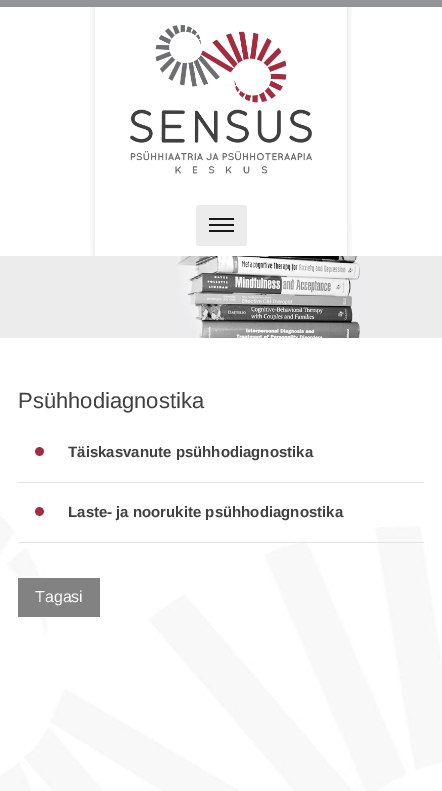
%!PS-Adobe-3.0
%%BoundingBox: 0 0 442 791
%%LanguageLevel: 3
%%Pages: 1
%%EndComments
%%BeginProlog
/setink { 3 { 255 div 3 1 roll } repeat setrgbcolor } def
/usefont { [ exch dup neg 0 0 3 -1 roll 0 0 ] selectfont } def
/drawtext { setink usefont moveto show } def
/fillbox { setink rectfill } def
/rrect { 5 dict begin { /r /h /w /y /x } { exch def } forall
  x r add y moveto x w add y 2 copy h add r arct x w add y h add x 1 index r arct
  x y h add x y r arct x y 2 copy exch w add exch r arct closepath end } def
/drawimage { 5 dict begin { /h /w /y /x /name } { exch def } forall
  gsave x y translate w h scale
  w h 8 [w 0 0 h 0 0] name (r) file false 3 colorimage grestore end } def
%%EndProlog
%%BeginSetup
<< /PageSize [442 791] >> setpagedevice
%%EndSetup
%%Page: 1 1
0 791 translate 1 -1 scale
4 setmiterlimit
0 0 442 791 236 236 237 fillbox
0 0 442 7 147 149 152 fillbox
0 7 442 249 255 255 255 fillbox
(assets/img1.rgb) 90 7 5 249 drawimage
(assets/img2.rgb) 130 25 182 149 drawimage
(assets/img3.rgb) 347 7 5 249 drawimage
236 236 237 setink
196 205 51 41 3 rrect fill
(assets/img4.rgb) 209 218 25 14 drawimage
(assets/img5.rgb) 178 256 182 82 drawimage
0 338 442 178 255 255 255 fillbox
(assets/img6.rgb) 0 516 442 275 drawimage
(Psühhodiagnostika) 18 408 /LiberationSans-Regular 22 64 64 65 drawtext
18 482 406 1 229 229 229 fillbox
(assets/img7.rgb) 35 447 9 9 drawimage
(Täiskasvanute psühhodiagnostika) 68 457 /LiberationSans-Bold 15 64 64 65 drawtext
18 542 406 1 229 229 229 fillbox
(assets/img7.rgb) 35 507 9 9 drawimage
(Laste- ja noorukite psühhodiagnostika) 68 517 /LiberationSans-Bold 15 64 64 65 drawtext
18 578 82 39 130 130 131 fillbox
(Tagasi) 35 602 /LiberationSans-Regular 16 255 255 255 drawtext
showpage
%%EOF
